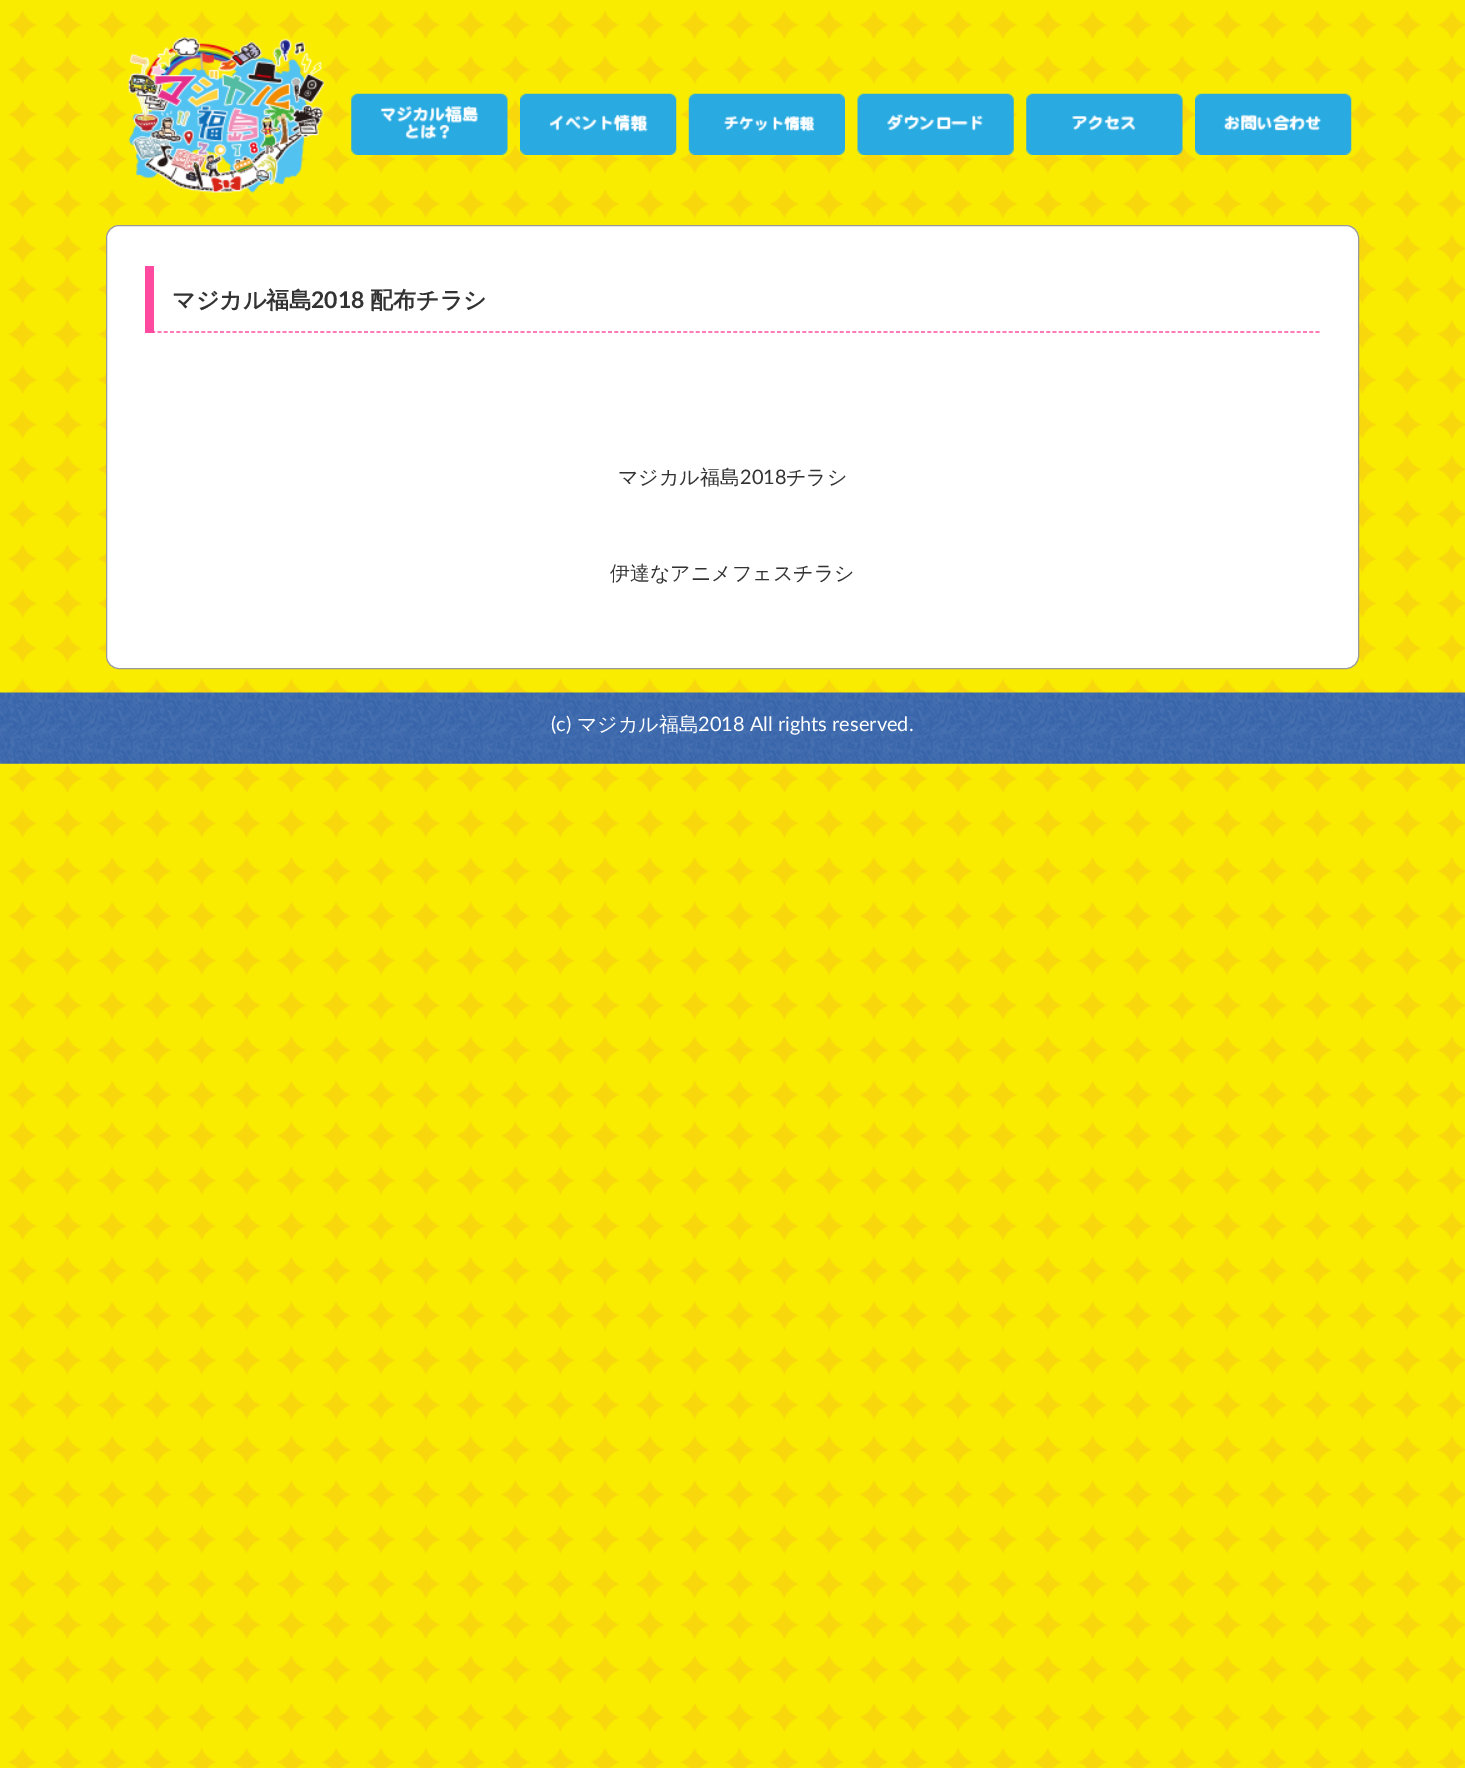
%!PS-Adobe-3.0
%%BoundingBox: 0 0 1465 1768
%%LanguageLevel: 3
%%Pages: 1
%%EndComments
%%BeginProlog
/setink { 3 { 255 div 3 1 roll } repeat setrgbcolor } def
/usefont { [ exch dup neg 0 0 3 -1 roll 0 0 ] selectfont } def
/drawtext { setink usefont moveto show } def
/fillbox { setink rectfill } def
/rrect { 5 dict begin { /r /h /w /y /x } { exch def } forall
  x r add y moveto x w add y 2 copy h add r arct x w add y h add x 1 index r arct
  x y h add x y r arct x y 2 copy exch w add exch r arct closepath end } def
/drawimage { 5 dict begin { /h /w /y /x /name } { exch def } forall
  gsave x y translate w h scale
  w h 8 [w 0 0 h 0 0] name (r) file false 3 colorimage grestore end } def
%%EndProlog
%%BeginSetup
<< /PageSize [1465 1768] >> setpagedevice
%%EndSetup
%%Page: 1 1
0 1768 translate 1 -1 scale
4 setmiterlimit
0 0 1465 1768 255 255 255 fillbox
(assets/img1.rgb) 0 0 1465 1768 drawimage
(assets/img2.rgb) 127 37 198 156 drawimage
(assets/img3.rgb) 351 93 157 62 drawimage
(assets/img4.rgb) 520 93 157 62 drawimage
(assets/img5.rgb) 688 93 157 62 drawimage
(assets/img6.rgb) 857 93 157 62 drawimage
(assets/img7.rgb) 1026 93 157 62 drawimage
(assets/img8.rgb) 1195 93 157 62 drawimage
106.5 225.5 1252 443 12.5 rrect gsave fill grestore
153 153 153 setink
stroke
255 74 159 setink
1.2 setlinewidth
[3.75 2.51] 0 setdash
145 332 moveto 1320 332 lineto stroke
145 266 9 67 255 74 159 fillbox
(マジカル福島) 172 308 /WenQuanYiZenHei-Bold 23 51 51 51 drawtext
(2018) 311 308 /Lato-Bold 23 51 51 51 drawtext
(配布チラシ) 370 308 /WenQuanYiZenHei-Bold 23 51 51 51 drawtext
(マジカル福島) 618 484 /WenQuanYiZenHei-Medium 20 51 51 51 drawtext
(2018) 740 484 /Lato-Regular 20 51 51 51 drawtext
(チラシ) 786 484 /WenQuanYiZenHei-Medium 20 51 51 51 drawtext
(伊達なアニメフェスチラシ) 610 580 /WenQuanYiZenHei-Medium 20 51 51 51 drawtext
(assets/img9.rgb) 0 692 1465 72 drawimage
(\(c\)) 551 731 /Lato-Regular 20 255 255 255 drawtext
(マジカル福島) 577 731 /WenQuanYiZenHei-Medium 20 255 255 255 drawtext
(2018 All rights reserved.) 698 731 /Lato-Regular 20 255 255 255 drawtext
showpage
%%EOF
